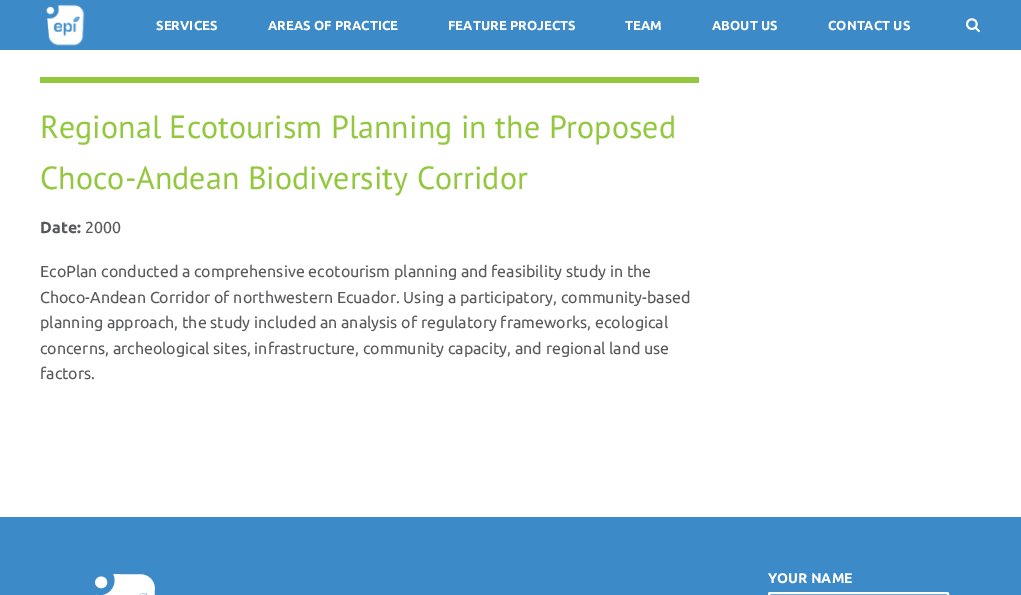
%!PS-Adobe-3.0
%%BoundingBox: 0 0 1021 595
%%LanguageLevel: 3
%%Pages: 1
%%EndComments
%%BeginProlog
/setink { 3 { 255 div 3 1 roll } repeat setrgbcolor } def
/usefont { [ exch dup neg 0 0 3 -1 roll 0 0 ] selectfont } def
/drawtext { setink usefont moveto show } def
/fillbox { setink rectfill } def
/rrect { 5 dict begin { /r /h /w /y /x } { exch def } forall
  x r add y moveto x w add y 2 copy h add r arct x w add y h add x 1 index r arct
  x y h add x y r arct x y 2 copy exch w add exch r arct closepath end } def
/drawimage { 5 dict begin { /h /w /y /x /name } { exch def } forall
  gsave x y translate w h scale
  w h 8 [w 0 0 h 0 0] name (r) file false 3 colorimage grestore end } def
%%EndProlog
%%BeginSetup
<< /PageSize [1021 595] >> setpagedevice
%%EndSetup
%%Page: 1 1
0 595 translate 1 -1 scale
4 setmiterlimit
0 0 1021 595 255 255 255 fillbox
0 0 1021 50 61 138 201 fillbox
(assets/img1.rgb) 46 4 39 42 drawimage
(SERVICES) 156 30 /Ubuntu-Bold 13 255 255 255 drawtext
(AREAS OF PRACTICE) 268 30 /Ubuntu-Bold 13 255 255 255 drawtext
(FEATURE PROJECTS) 448 30 /Ubuntu-Bold 13 255 255 255 drawtext
(TEAM) 625 30 /Ubuntu-Bold 13 255 255 255 drawtext
(ABOUT US) 712 30 /Ubuntu-Bold 13 255 255 255 drawtext
(CONTACT US) 828 30 /Ubuntu-Bold 13 255 255 255 drawtext
(assets/img2.rgb) 966 18 14 15 drawimage
40 77 659 6 147 200 62 fillbox
(Regional Ecotourism Planning in the Proposed) 40 138 /PTSans-Regular 32 147 200 62 drawtext
(Choco-Andean Biodiversity Corridor) 40 189 /PTSans-Regular 32 147 200 62 drawtext
(Date:) 40 233 /Ubuntu-Bold 16 88 89 91 drawtext
(2000) 85 233 /Ubuntu-Regular 16 88 89 91 drawtext
(EcoPlan conducted a comprehensive ecotourism planning and feasibility study in the) 40 277 /Ubuntu-Regular 16 88 89 91 drawtext
(Choco-Andean Corridor of northwestern Ecuador. Using a participatory, community-based) 40 303 /Ubuntu-Regular 16 88 89 91 drawtext
(planning approach, the study included an analysis of regulatory frameworks, ecological) 40 328 /Ubuntu-Regular 16 88 89 91 drawtext
(concerns, archeological sites, infrastructure, community capacity, and regional land use) 40 354 /Ubuntu-Regular 16 88 89 91 drawtext
(factors.) 40 379 /Ubuntu-Regular 16 88 89 91 drawtext
0 517 1021 78 61 138 201 fillbox
(assets/img3.rgb) 95 574 60 21 drawimage
(YOUR NAME) 768 583 /Ubuntu-Bold 14 255 255 255 drawtext
2 setlinewidth
769 593 179 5 1 rrect stroke
showpage
%%EOF
